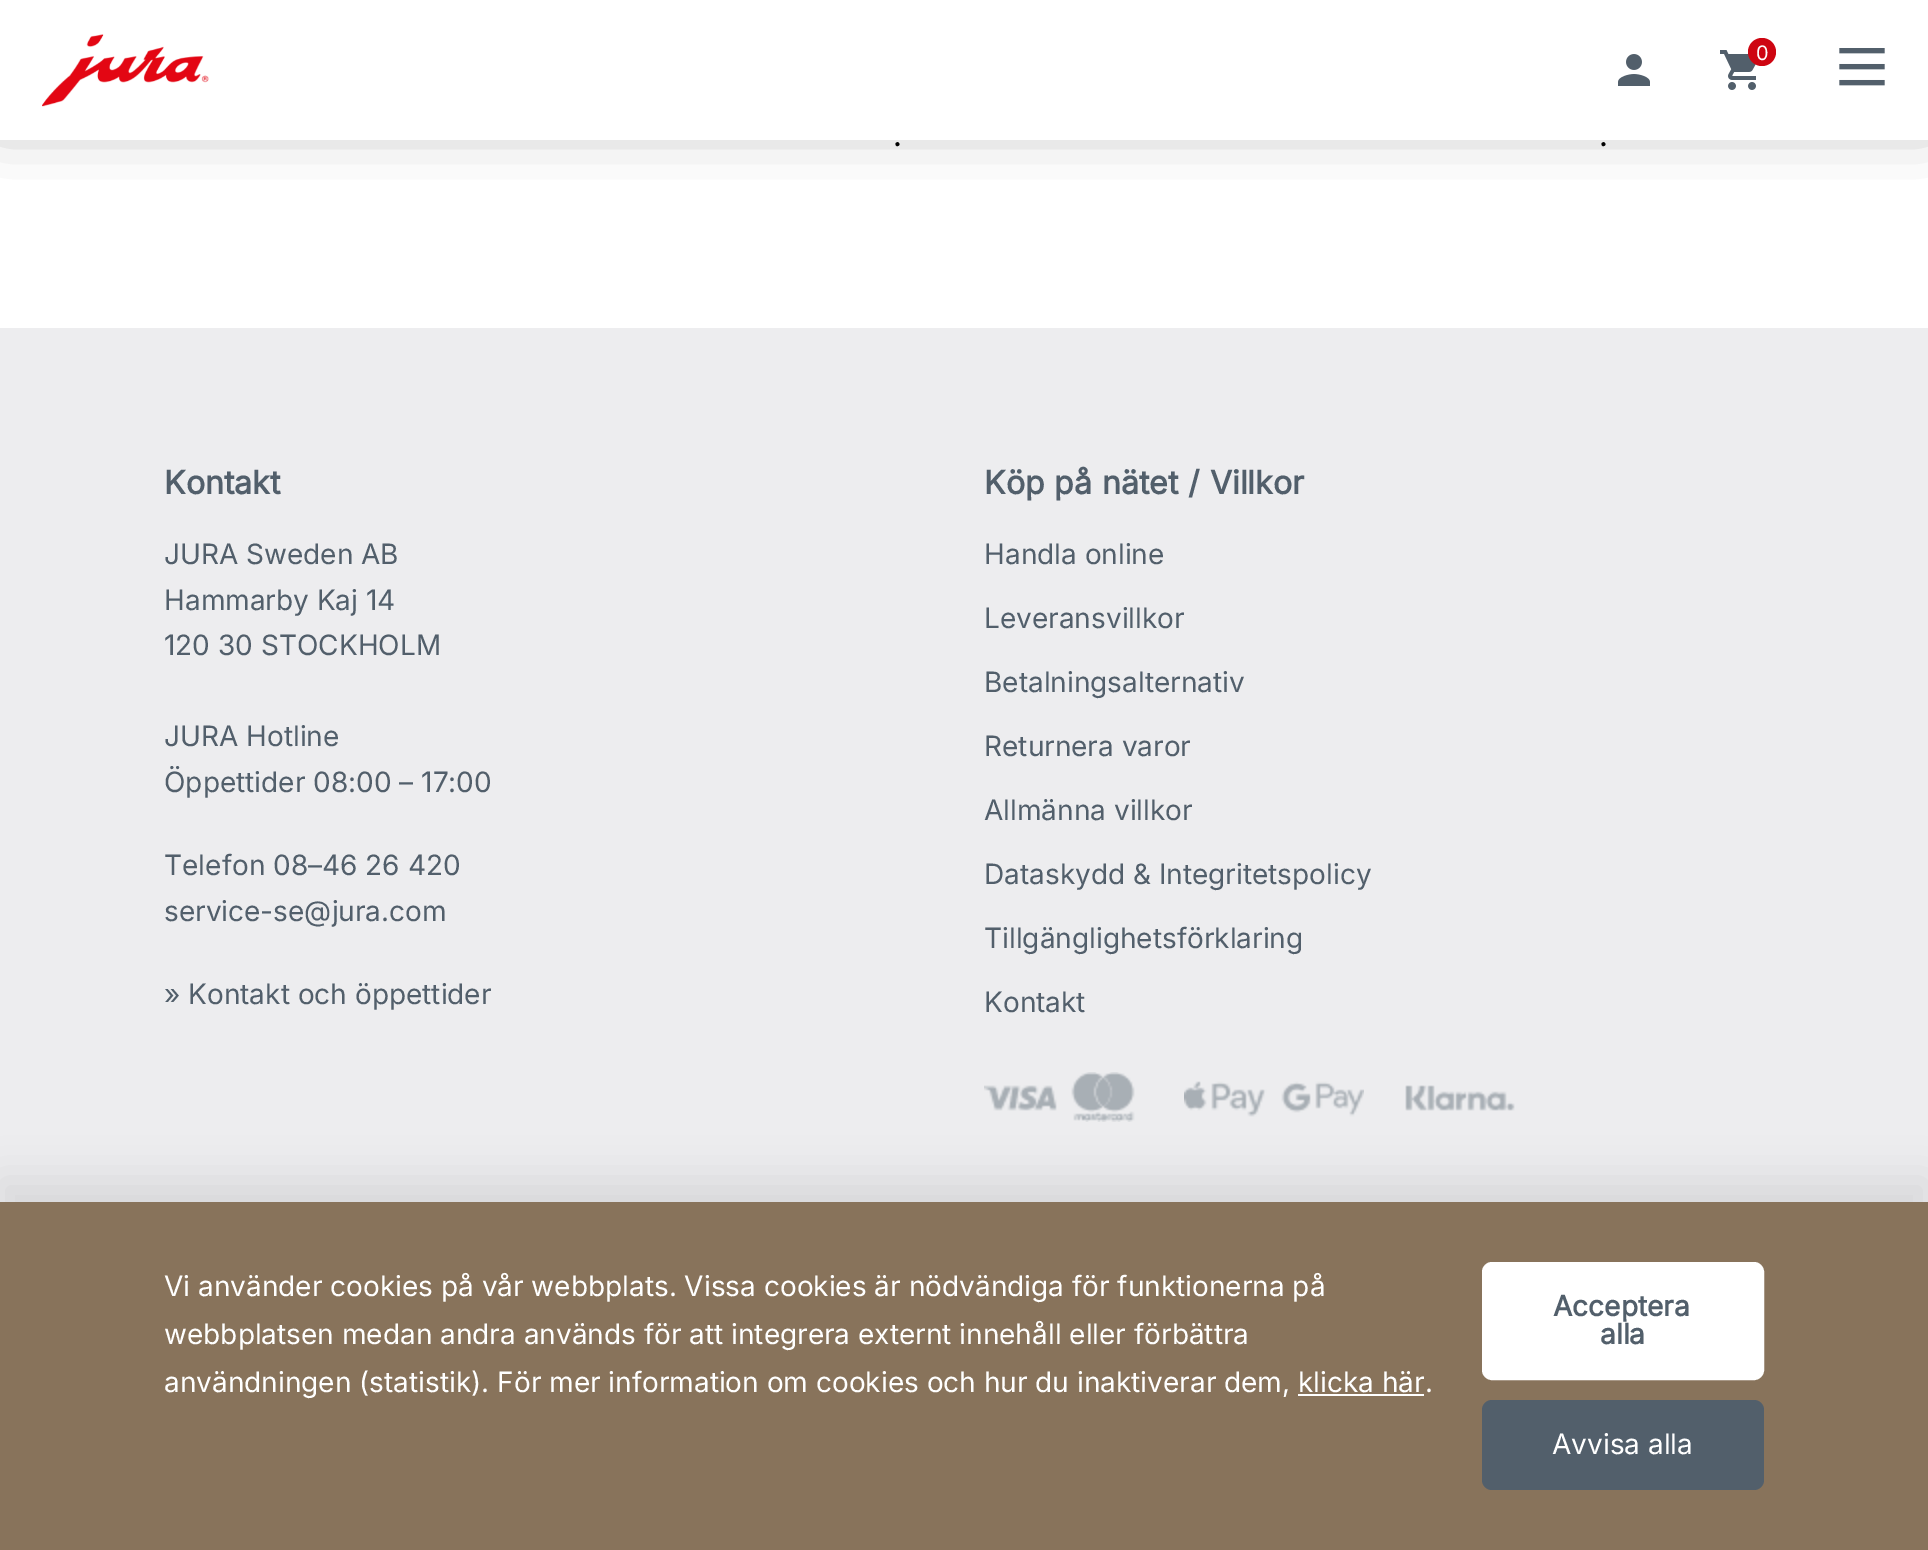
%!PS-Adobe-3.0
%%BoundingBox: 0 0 1928 1550
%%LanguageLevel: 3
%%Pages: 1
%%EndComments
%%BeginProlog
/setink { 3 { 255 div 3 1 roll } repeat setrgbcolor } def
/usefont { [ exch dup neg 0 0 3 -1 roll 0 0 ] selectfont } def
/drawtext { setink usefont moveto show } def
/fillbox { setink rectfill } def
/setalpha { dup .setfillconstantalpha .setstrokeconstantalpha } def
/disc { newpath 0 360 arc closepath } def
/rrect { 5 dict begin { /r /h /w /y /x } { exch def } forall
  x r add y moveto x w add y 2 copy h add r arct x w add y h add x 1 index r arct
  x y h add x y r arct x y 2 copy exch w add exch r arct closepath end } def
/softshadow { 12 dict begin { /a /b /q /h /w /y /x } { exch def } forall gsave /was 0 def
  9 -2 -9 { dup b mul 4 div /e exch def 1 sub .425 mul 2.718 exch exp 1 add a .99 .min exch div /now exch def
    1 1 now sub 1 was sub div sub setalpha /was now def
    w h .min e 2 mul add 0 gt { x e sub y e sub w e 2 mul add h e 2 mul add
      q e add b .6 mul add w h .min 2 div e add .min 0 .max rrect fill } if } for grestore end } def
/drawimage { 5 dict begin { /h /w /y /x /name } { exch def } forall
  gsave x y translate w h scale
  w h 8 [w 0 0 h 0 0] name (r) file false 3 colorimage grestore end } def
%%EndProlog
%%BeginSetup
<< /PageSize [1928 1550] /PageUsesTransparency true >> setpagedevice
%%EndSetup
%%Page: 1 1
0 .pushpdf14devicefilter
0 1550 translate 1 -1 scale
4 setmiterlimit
0 0 1928 1550 255 255 255 fillbox
0 0 0 setink
0 -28 1928 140 0 30 0.55 softshadow
0 0 1928 140 255 255 255 fillbox
(assets/img1.rgb) 42 34 167 73 drawimage
(assets/img2.rgb) 1618 54 32 32 drawimage
(assets/img3.rgb) 1720 50 36 40 drawimage
206 5 17 setink
1762 52 14 disc fill
(0) 1756 60 /Inter-Regular 20 255 255 255 drawtext
(assets/img4.rgb) 1839 48 46 38 drawimage
(.) 893 146 /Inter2-Regular 32 0 0 0 drawtext
(.) 1599 146 /Inter2-Regular 32 0 0 0 drawtext
0 328 1928 874 237 237 239 fillbox
(Kontakt) 164 494 /Inter-Bold 32 82 95 107 drawtext
(JURA Sweden AB) 164 564 /Inter-Regular 28 82 95 107 drawtext
(Hammarby Kaj 14) 164 610 /Inter-Regular 28 82 95 107 drawtext
(120 30 STOCKHOLM) 164 655 /Inter-Regular 28 82 95 107 drawtext
(JURA Hotline) 164 746 /Inter-Regular 28 82 95 107 drawtext
(Öppettider 08:00 – 17:00) 164 792 /Inter-Regular 28 82 95 107 drawtext
(Telefon 08–46 26 420) 164 875 /Inter-Regular 28 82 95 107 drawtext
(service-se@jura.com) 164 921 /Inter-Regular 28 82 95 107 drawtext
(» Kontakt och öppettider) 164 1004 /Inter-Regular 28 82 95 107 drawtext
/Inter-Bold 32 usefont
984 494 moveto 1 0 32 (Köp på nätet / Villkor) widthshow
(Handla online) 984 564 /Inter-Regular 28 82 95 107 drawtext
(Leveransvillkor) 984 628 /Inter-Regular 28 82 95 107 drawtext
(Betalningsalternativ) 984 692 /Inter-Regular 28 82 95 107 drawtext
(Returnera varor) 984 756 /Inter-Regular 28 82 95 107 drawtext
(Allmänna villkor) 984 820 /Inter-Regular 28 82 95 107 drawtext
(Dataskydd & Integritetspolicy) 984 884 /Inter-Regular 28 82 95 107 drawtext
(Tillgänglighetsförklaring) 984 948 /Inter-Regular 28 82 95 107 drawtext
(Kontakt) 984 1012 /Inter-Regular 28 82 95 107 drawtext
(assets/img5.rgb) 984 1072 151 50 drawimage
(assets/img6.rgb) 1184 1081 180 36 drawimage
(assets/img7.rgb) 1405 1085 110 26 drawimage
0 0 0 setink
0 1180 1928 348 0 20 0.08 softshadow
0 1202 1928 348 136 115 91 fillbox
(Vi använder cookies på vår webbplats. Vissa cookies är nödvändiga för funktionerna på) 164 1296 /Inter-Regular 28 255 255 255 drawtext
(webbplatsen medan andra används för att integrera externt innehåll eller förbättra) 164 1344 /Inter-Regular 28 255 255 255 drawtext
(användningen \(statistik\). För mer information om cookies och hur du inaktiverar dem, klicka här.) 164 1392 /Inter-Regular 28 255 255 255 drawtext
1298 1394 126 2 255 255 255 fillbox
1484 1264 278 114 8 rrect gsave fill grestore
4 setlinewidth
stroke
(Acceptera) 1553 1316 /Inter-Bold 28 82 95 107 drawtext
(alla) 1600 1344 /Inter-Bold 28 82 95 107 drawtext
1482 1400 282 90 10 rrect fill
(Avvisa alla) 1552 1454 /Inter-Regular 28 255 255 255 drawtext
.poppdf14devicefilter showpage
%%EOF
